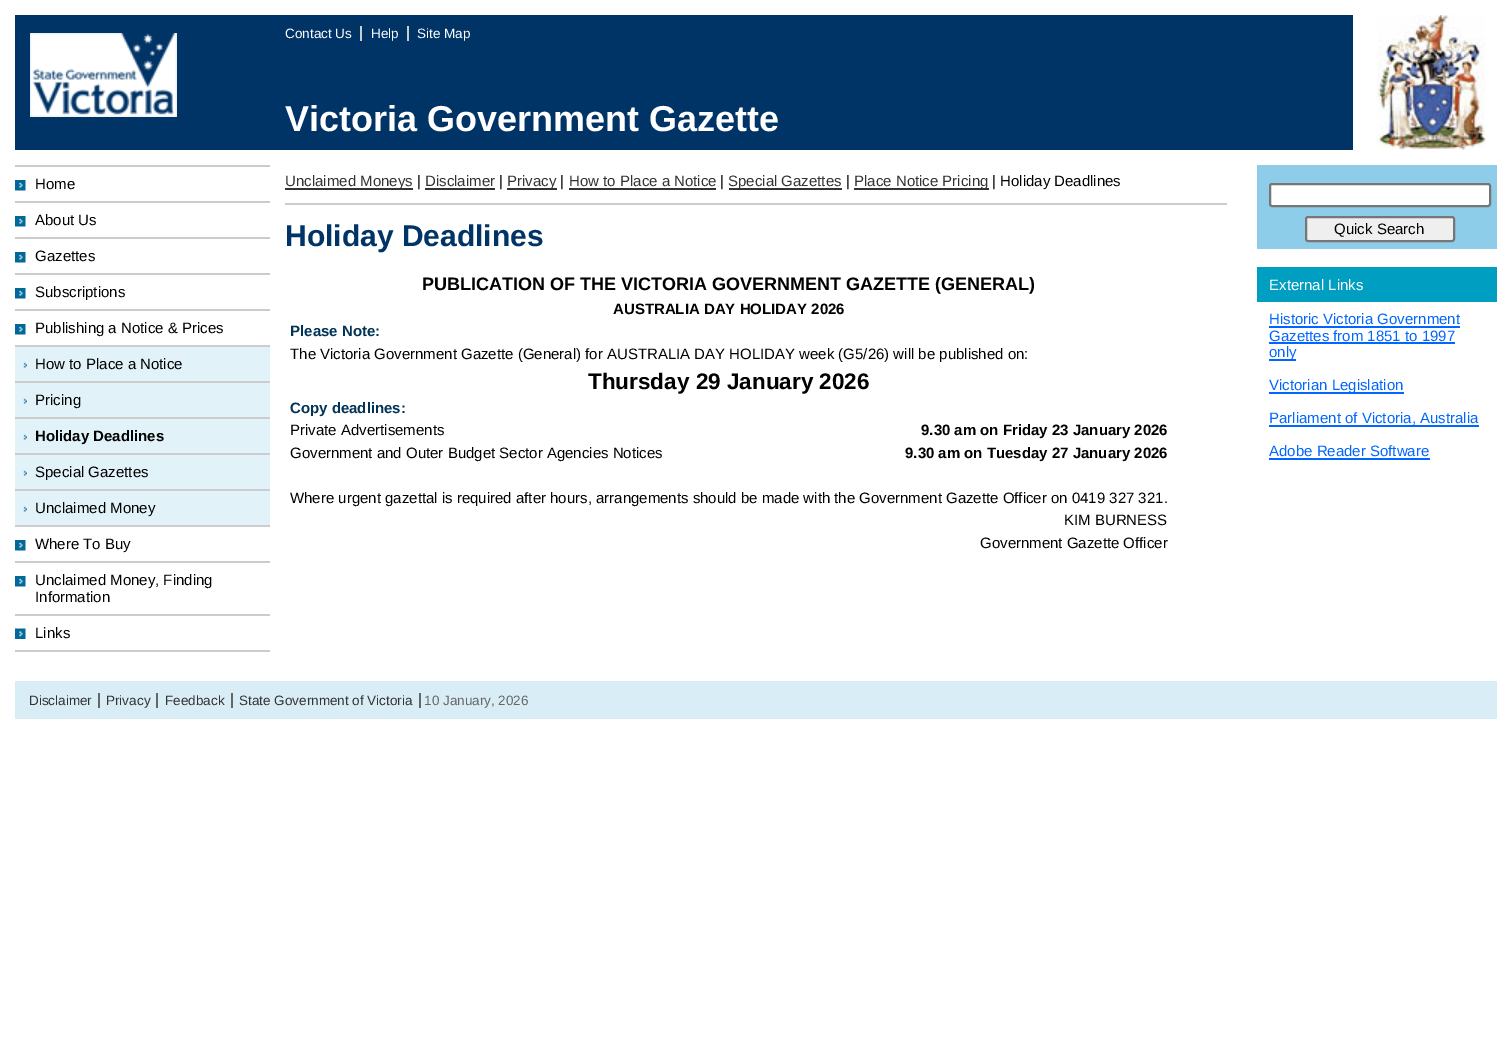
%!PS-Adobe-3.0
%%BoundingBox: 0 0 1511 1042
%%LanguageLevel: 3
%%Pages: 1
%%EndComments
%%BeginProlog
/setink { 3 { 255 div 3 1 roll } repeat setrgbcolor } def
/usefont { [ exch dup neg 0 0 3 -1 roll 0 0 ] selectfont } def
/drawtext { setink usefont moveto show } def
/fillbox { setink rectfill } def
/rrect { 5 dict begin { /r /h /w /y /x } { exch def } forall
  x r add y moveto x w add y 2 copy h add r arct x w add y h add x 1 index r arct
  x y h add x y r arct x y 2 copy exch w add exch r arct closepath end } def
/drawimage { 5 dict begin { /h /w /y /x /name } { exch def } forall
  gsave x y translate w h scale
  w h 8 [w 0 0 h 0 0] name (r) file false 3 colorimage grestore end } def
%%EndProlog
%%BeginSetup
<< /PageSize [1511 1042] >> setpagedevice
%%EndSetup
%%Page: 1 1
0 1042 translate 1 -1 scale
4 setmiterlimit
0 0 1511 1042 255 255 255 fillbox
15 15 1338 135 0 51 102 fillbox
(assets/img1.rgb) 30 33 147 84 drawimage
(Contact Us) 285 38 /LiberationSans-Regular 13.5 255 255 255 drawtext
(Help) 371 38 /LiberationSans-Regular 13.5 255 255 255 drawtext
360 26 2 15 204 204 204 fillbox
(Site Map) 417 38 /LiberationSans-Regular 13.5 255 255 255 drawtext
407 26 2 15 204 204 204 fillbox
(assets/img2.rgb) 1377 15 109 135 drawimage
(Victoria Government Gazette) 285 131 /LiberationSans-Bold 36 255 255 255 drawtext
15 165 255 2 204 204 204 fillbox
(assets/img3.rgb) 15 180 11 11 drawimage
15 201 255 2 204 204 204 fillbox
(Home) 35 189 /LiberationSans-Regular 15 0 0 0 drawtext
(assets/img3.rgb) 15 216 11 11 drawimage
15 237 255 2 204 204 204 fillbox
(About Us) 35 225 /LiberationSans-Regular 15 0 0 0 drawtext
(assets/img3.rgb) 15 252 11 11 drawimage
15 273 255 2 204 204 204 fillbox
(Gazettes) 35 261 /LiberationSans-Regular 15 0 0 0 drawtext
(assets/img3.rgb) 15 288 11 11 drawimage
15 309 255 2 204 204 204 fillbox
(Subscriptions) 35 297 /LiberationSans-Regular 15 0 0 0 drawtext
(assets/img3.rgb) 15 324 11 11 drawimage
15 345 255 2 204 204 204 fillbox
(Publishing a Notice & Prices) 35 333 /LiberationSans-Regular 15 0 0 0 drawtext
15 347 255 34 225 242 249 fillbox
(assets/img4.rgb) 23 362 4 6 drawimage
15 381 255 2 204 204 204 fillbox
(How to Place a Notice) 35 369 /LiberationSans-Regular 15 0 0 0 drawtext
15 383 255 34 225 242 249 fillbox
(assets/img4.rgb) 23 398 4 6 drawimage
15 417 255 2 204 204 204 fillbox
(Pricing) 35 405 /LiberationSans-Regular 15 0 0 0 drawtext
15 419 255 34 225 242 249 fillbox
(assets/img4.rgb) 23 434 4 6 drawimage
15 453 255 2 204 204 204 fillbox
(Holiday Deadlines) 35 441 /LiberationSans-Bold 15 0 0 0 drawtext
15 455 255 34 225 242 249 fillbox
(assets/img4.rgb) 23 470 4 6 drawimage
15 489 255 2 204 204 204 fillbox
(Special Gazettes) 35 477 /LiberationSans-Regular 15 0 0 0 drawtext
15 491 255 34 225 242 249 fillbox
(assets/img4.rgb) 23 506 4 6 drawimage
15 525 255 2 204 204 204 fillbox
(Unclaimed Money) 35 513 /LiberationSans-Regular 15 0 0 0 drawtext
(assets/img3.rgb) 15 540 11 11 drawimage
15 561 255 2 204 204 204 fillbox
(Where To Buy) 35 549 /LiberationSans-Regular 15 0 0 0 drawtext
(assets/img3.rgb) 15 576 11 11 drawimage
15 614 255 2 204 204 204 fillbox
(Unclaimed Money, Finding) 35 585 /LiberationSans-Regular 15 0 0 0 drawtext
(Information) 35 602 /LiberationSans-Regular 15 0 0 0 drawtext
(assets/img5.rgb) 15 628 11 11 drawimage
15 650 255 2 204 204 204 fillbox
(Links) 35 638 /LiberationSans-Regular 15 0 0 0 drawtext
285 203 942 2 204 204 204 fillbox
285 188 128 2 51 51 51 fillbox
(Unclaimed Moneys) 285 186 /LiberationSans-Regular 15 51 51 51 drawtext
(|) 417 186 /LiberationSans-Regular 15 0 0 0 drawtext
(Disclaimer) 425 186 /LiberationSans-Regular 15 51 51 51 drawtext
425 188 70 2 51 51 51 fillbox
(|) 499 186 /LiberationSans-Regular 15 0 0 0 drawtext
507 188 50 2 51 51 51 fillbox
(Privacy) 507 186 /LiberationSans-Regular 15 51 51 51 drawtext
(|) 560 186 /LiberationSans-Regular 15 0 0 0 drawtext
(How to Place a Notice) 569 186 /LiberationSans-Regular 15 51 51 51 drawtext
569 188 147 2 51 51 51 fillbox
(|) 720 186 /LiberationSans-Regular 15 0 0 0 drawtext
729 188 113 2 51 51 51 fillbox
(Special Gazettes) 728 186 /LiberationSans-Regular 15 51 51 51 drawtext
(|) 846 186 /LiberationSans-Regular 15 0 0 0 drawtext
854 188 135 2 51 51 51 fillbox
(Place Notice Pricing) 854 186 /LiberationSans-Regular 15 51 51 51 drawtext
(| Holiday Deadlines) 992 186 /LiberationSans-Regular 15 0 0 0 drawtext
(Holiday Deadlines) 285 246 /LiberationSans-Bold 30 0 51 102 drawtext
(PUBLICATION OF THE VICTORIA GOVERNMENT GAZETTE \(GENERAL\)) 422 290 /LiberationSans-Bold 18 0 0 0 drawtext
(AUSTRALIA DAY HOLIDAY 2026) 613 314 /LiberationSans-Bold 15 0 0 0 drawtext
(Please Note:) 290 336 /LiberationSans-Bold 15 0 51 85 drawtext
(The Victoria Government Gazette \(General\) for AUSTRALIA DAY HOLIDAY week \(G5/26\) will be published on:) 290 359 /LiberationSans-Regular 15 0 0 0 drawtext
(Thursday 29 January 2026) 588 389 /LiberationSans-Bold 22.5 0 0 0 drawtext
(Copy deadlines:) 290 413 /LiberationSans-Bold 15 0 51 85 drawtext
(Private Advertisements) 290 435 /LiberationSans-Regular 15 0 0 0 drawtext
(9.30 am on Friday 23 January 2026) 921 435 /LiberationSans-Bold 15 0 0 0 drawtext
(Government and Outer Budget Sector Agencies Notices) 290 458 /LiberationSans-Regular 15 0 0 0 drawtext
(9.30 am on Tuesday 27 January 2026) 905 458 /LiberationSans-Bold 15 0 0 0 drawtext
(Where urgent gazettal is required after hours, arrangements should be made with the Government Gazette Officer on 0419 327 321.) 290 503 /LiberationSans-Regular 15 0 0 0 drawtext
(KIM BURNESS) 1064 525 /LiberationSans-Regular 15 0 0 0 drawtext
(Government Gazette Officer) 980 548 /LiberationSans-Regular 15 0 0 0 drawtext
1257 165 240 84 142 205 234 fillbox
255 255 255 setink
1270 184 220 22 2 rrect gsave fill grestore
118 118 118 setink
2 setlinewidth
stroke
239 239 239 setink
1306 217 148 24 2 rrect gsave fill grestore
118 118 118 setink
stroke
(Quick Search) 1334 234 /LiberationSans-Regular 15 0 0 0 drawtext
1257 267 240 35 0 158 192 fillbox
(External Links) 1269 290 /LiberationSans-Regular 15 255 255 255 drawtext
(Historic Victoria Government) 1269 324 /LiberationSans-Regular 15 0 102 255 drawtext
1269 326 191 2 0 102 255 fillbox
(Gazettes from 1851 to 1997) 1269 341 /LiberationSans-Regular 15 0 102 255 drawtext
1269 342 186 2 0 102 255 fillbox
1269 359 27 2 0 102 255 fillbox
(only) 1269 357 /LiberationSans-Regular 15 0 102 255 drawtext
1269 392 135 2 0 102 255 fillbox
(Victorian Legislation) 1269 390 /LiberationSans-Regular 15 0 102 255 drawtext
(Parliament of Victoria, Australia) 1269 423 /LiberationSans-Regular 15 0 102 255 drawtext
1269 425 210 2 0 102 255 fillbox
(Adobe Reader Software) 1269 456 /LiberationSans-Regular 15 0 102 255 drawtext
1269 458 161 2 0 102 255 fillbox
15 681 1482 38 217 237 247 fillbox
(Disclaimer) 29 705 /LiberationSans-Regular 13.5 51 51 51 drawtext
98 693 2 15 102 102 102 fillbox
(Privacy) 106 705 /LiberationSans-Regular 13.5 51 51 51 drawtext
156 693 2 15 102 102 102 fillbox
(Feedback) 165 705 /LiberationSans-Regular 13.5 51 51 51 drawtext
231 693 2 15 102 102 102 fillbox
(State Government of Victoria) 239 705 /LiberationSans-Regular 13.5 51 51 51 drawtext
419 693 2 15 102 102 102 fillbox
(10 January, 2026) 424 705 /LiberationSans-Regular 13.5 102 102 102 drawtext
showpage
%%EOF
